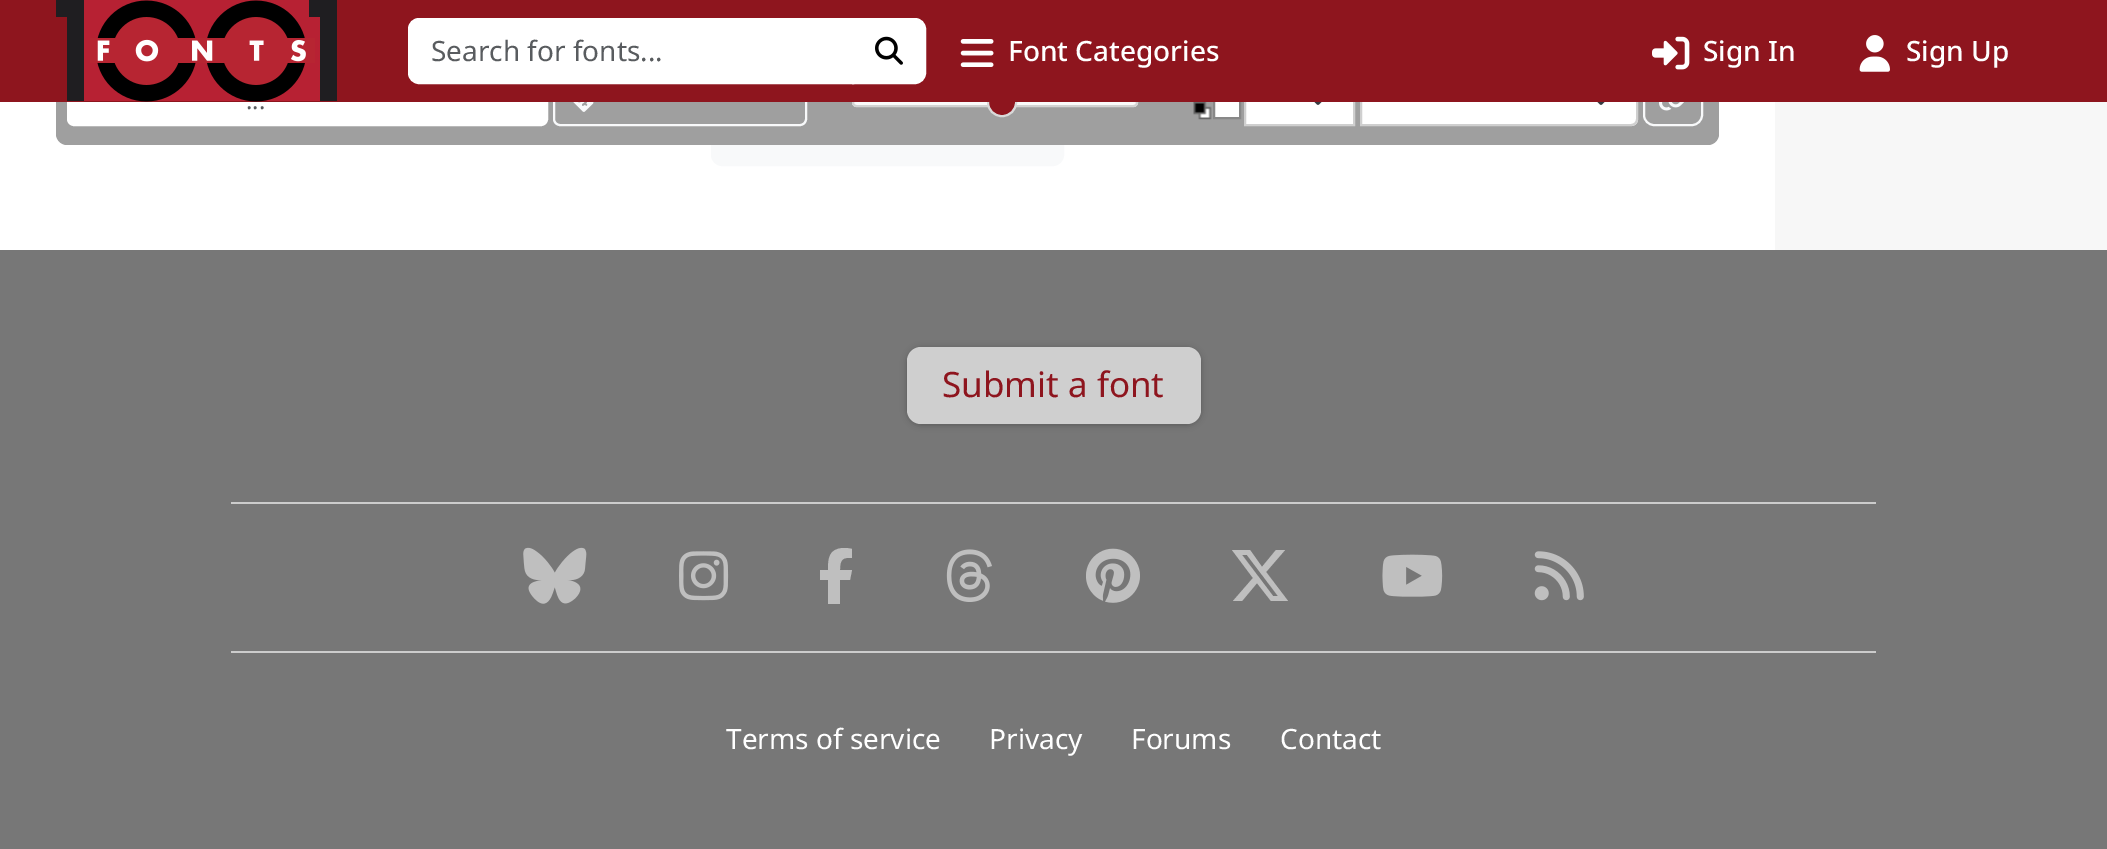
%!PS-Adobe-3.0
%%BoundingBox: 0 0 2107 849
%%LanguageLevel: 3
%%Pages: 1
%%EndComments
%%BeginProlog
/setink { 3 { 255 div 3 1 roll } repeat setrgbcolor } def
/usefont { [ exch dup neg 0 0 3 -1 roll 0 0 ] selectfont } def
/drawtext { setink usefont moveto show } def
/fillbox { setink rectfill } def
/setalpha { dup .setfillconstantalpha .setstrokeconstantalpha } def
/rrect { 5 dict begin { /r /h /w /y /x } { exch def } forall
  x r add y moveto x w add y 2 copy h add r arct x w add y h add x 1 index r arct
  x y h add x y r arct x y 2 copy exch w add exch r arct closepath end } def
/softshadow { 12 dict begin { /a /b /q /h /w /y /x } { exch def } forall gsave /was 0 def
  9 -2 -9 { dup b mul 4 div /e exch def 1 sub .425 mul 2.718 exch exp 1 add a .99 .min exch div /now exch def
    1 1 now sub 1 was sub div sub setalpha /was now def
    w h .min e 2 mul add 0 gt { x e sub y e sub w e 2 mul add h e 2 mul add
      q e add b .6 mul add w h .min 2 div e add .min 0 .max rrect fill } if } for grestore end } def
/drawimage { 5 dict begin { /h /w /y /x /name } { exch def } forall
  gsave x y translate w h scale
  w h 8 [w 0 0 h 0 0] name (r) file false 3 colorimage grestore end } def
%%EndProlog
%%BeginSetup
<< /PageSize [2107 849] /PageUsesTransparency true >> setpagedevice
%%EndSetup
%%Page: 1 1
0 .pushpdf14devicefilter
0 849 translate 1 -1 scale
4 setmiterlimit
0 0 2107 849 119 119 119 fillbox
0 102 1775 148 255 255 255 fillbox
248 249 250 setink
712 101 351 64 10 rrect gsave fill grestore
2 setlinewidth
stroke
159 159 159 setink
56 58 moveto 1719 58 lineto 1719 134 lineto 1719 140 1714 145 1708 145 curveto 67 145 lineto 61 145 56 140 56 134 curveto closepath fill
255 255 255 setink
68 73 479 52 6 rrect gsave fill grestore
stroke
248 249 250 setink
554 73 252 52 6 rrect stroke
250 250 250 setink
852 98 286 9 4.5 rrect fill
240 240 240 setink
857 102 moveto 1133 102 lineto 1135 102 1136 103 1136 103 curveto 1136 102 1136 101 1135 101 curveto 1134 100 lineto 856 100 lineto 855 100 854 102 854 103 curveto 854 103 855 102 857 102 curveto closepath fill
211 211 211 setink
853 99 284 7 3.5 rrect stroke
142 21 30 setink
988 89 28 27 13.5 rrect gsave fill grestore
217 217 217 setink
stroke
1215 102 24 15 255 255 255 fillbox
136 136 136 setink
1214 92 26 26 rectstroke
1246 102 107 22 255 255 255 fillbox
52 58 64 setink
2.6 setlinewidth
1 setlinecap
1 setlinejoin
1310 96 moveto 1318 103.5 lineto 1325.5 96 lineto stroke
207 207 207 setink
2 setlinewidth
0 setlinecap
0 setlinejoin
1245 73 109 52 rectstroke
255 255 255 setink
1360 72 moveto 1631 72 lineto 1635 72 1638 75 1638 79 curveto 1638 119 lineto 1638 123 1635 126 1631 126 curveto 1360 126 lineto closepath fill
52 58 64 setink
2.6 setlinewidth
1 setlinecap
1 setlinejoin
1593.5 96 moveto 1601 103.5 lineto 1609 96 lineto stroke
207 207 207 setink
2 setlinewidth
0 setlinecap
0 setlinejoin
1361 73 moveto 1631 73 lineto 1634.5 73 1637 75.5 1637 79 curveto 1637 119 lineto 1637 122.5 1634.5 125 1631 125 curveto 1361 125 lineto closepath stroke
248 249 250 setink
1644 73 58 52 10 rrect stroke
0 0 2107 102 142 21 30 fillbox
(assets/img1.rgb) 56 0 281 102 drawimage
255 255 255 setink
419 19 moveto 853 19 lineto 853 83 lineto 419 83 lineto 413.5 83 409 78.5 409 73 curveto 409 29 lineto 409 23.5 413.5 19 419 19 curveto closepath gsave fill grestore
stroke
(Search for fonts...) 431 61 /NotoSans-Regular 28 89 92 95 drawtext
255 255 255 setink
853 19 moveto 915 19 lineto 920.5 19 925 23.5 925 29 curveto 925 73 lineto 925 78.5 920.5 83 915 83 curveto 853 83 lineto closepath gsave fill grestore
stroke
(assets/img2.rgb) 875 36 28 29 drawimage
(assets/img3.rgb) 960 39 34 28 drawimage
(Font Categories) 1008 61 /NotoSans-Medium 28 255 255 255 drawtext
(assets/img4.rgb) 1652 36 38 34 drawimage
(Sign In) 1703 61 /NotoSans-Medium 28 255 255 255 drawtext
(assets/img5.rgb) 1859 35 31 37 drawimage
(Sign Up) 1906 61 /NotoSans-Medium 28 255 255 255 drawtext
(...) 246 109 /NotoSans-Regular 24 89 92 95 drawtext
(assets/img6.rgb) 573 102 21 10 drawimage
(assets/img7.rgb) 1193 102 19 18 drawimage
(assets/img8.rgb) 1659 102 25 9 drawimage
1775 102 332 148 247 247 247 fillbox
0 0 0 setink
907 348 294 77 14 3.5 0.25 softshadow
207 207 207 setink
907 347 294 77 14 rrect fill
(Submit a font) 942 397 /NotoSans-Regular 35 142 21 30 drawtext
231 502 1645 2 204 204 204 fillbox
231 651 1645 2 204 204 204 fillbox
(assets/img9.rgb) 523 547 64 57 drawimage
(assets/img10.rgb) 679 551 50 50 drawimage
191 191 191 setink
828 580 moveto 828 604 lineto 840 604 lineto 840 580 lineto 850 580 lineto 852 570 lineto 840 570 lineto 840 560 842 557 852 558 curveto 852 549 lineto 849 548 846 548 843 548 curveto 829 549 828 558 828 570 curveto 820 570 lineto 820 580 lineto closepath fill
(assets/img11.rgb) 946 549 46 53 drawimage
(assets/img12.rgb) 1086 548 54 55 drawimage
1276 550 moveto 1285 550 lineto 1266 572 lineto 1288 601 lineto 1271 601 lineto 1257 583 lineto 1242 601 lineto 1233 601 lineto 1253 578 lineto 1232 550 lineto 1250 550 lineto 1262 567 lineto closepath 1273 596 moveto 1278 596 lineto 1247 555 lineto 1242 555 lineto closepath fill
(assets/img13.rgb) 1382 554 61 43 drawimage
(assets/img14.rgb) 1534 551 50 50 drawimage
(Terms of service) 726 749 /NotoSans-Regular 28 255 255 255 drawtext
(Privacy) 989 749 /NotoSans-Regular 28 255 255 255 drawtext
(Forums) 1131 749 /NotoSans-Regular 28 255 255 255 drawtext
(Contact) 1280 749 /NotoSans-Regular 28 255 255 255 drawtext
.poppdf14devicefilter showpage
%%EOF
